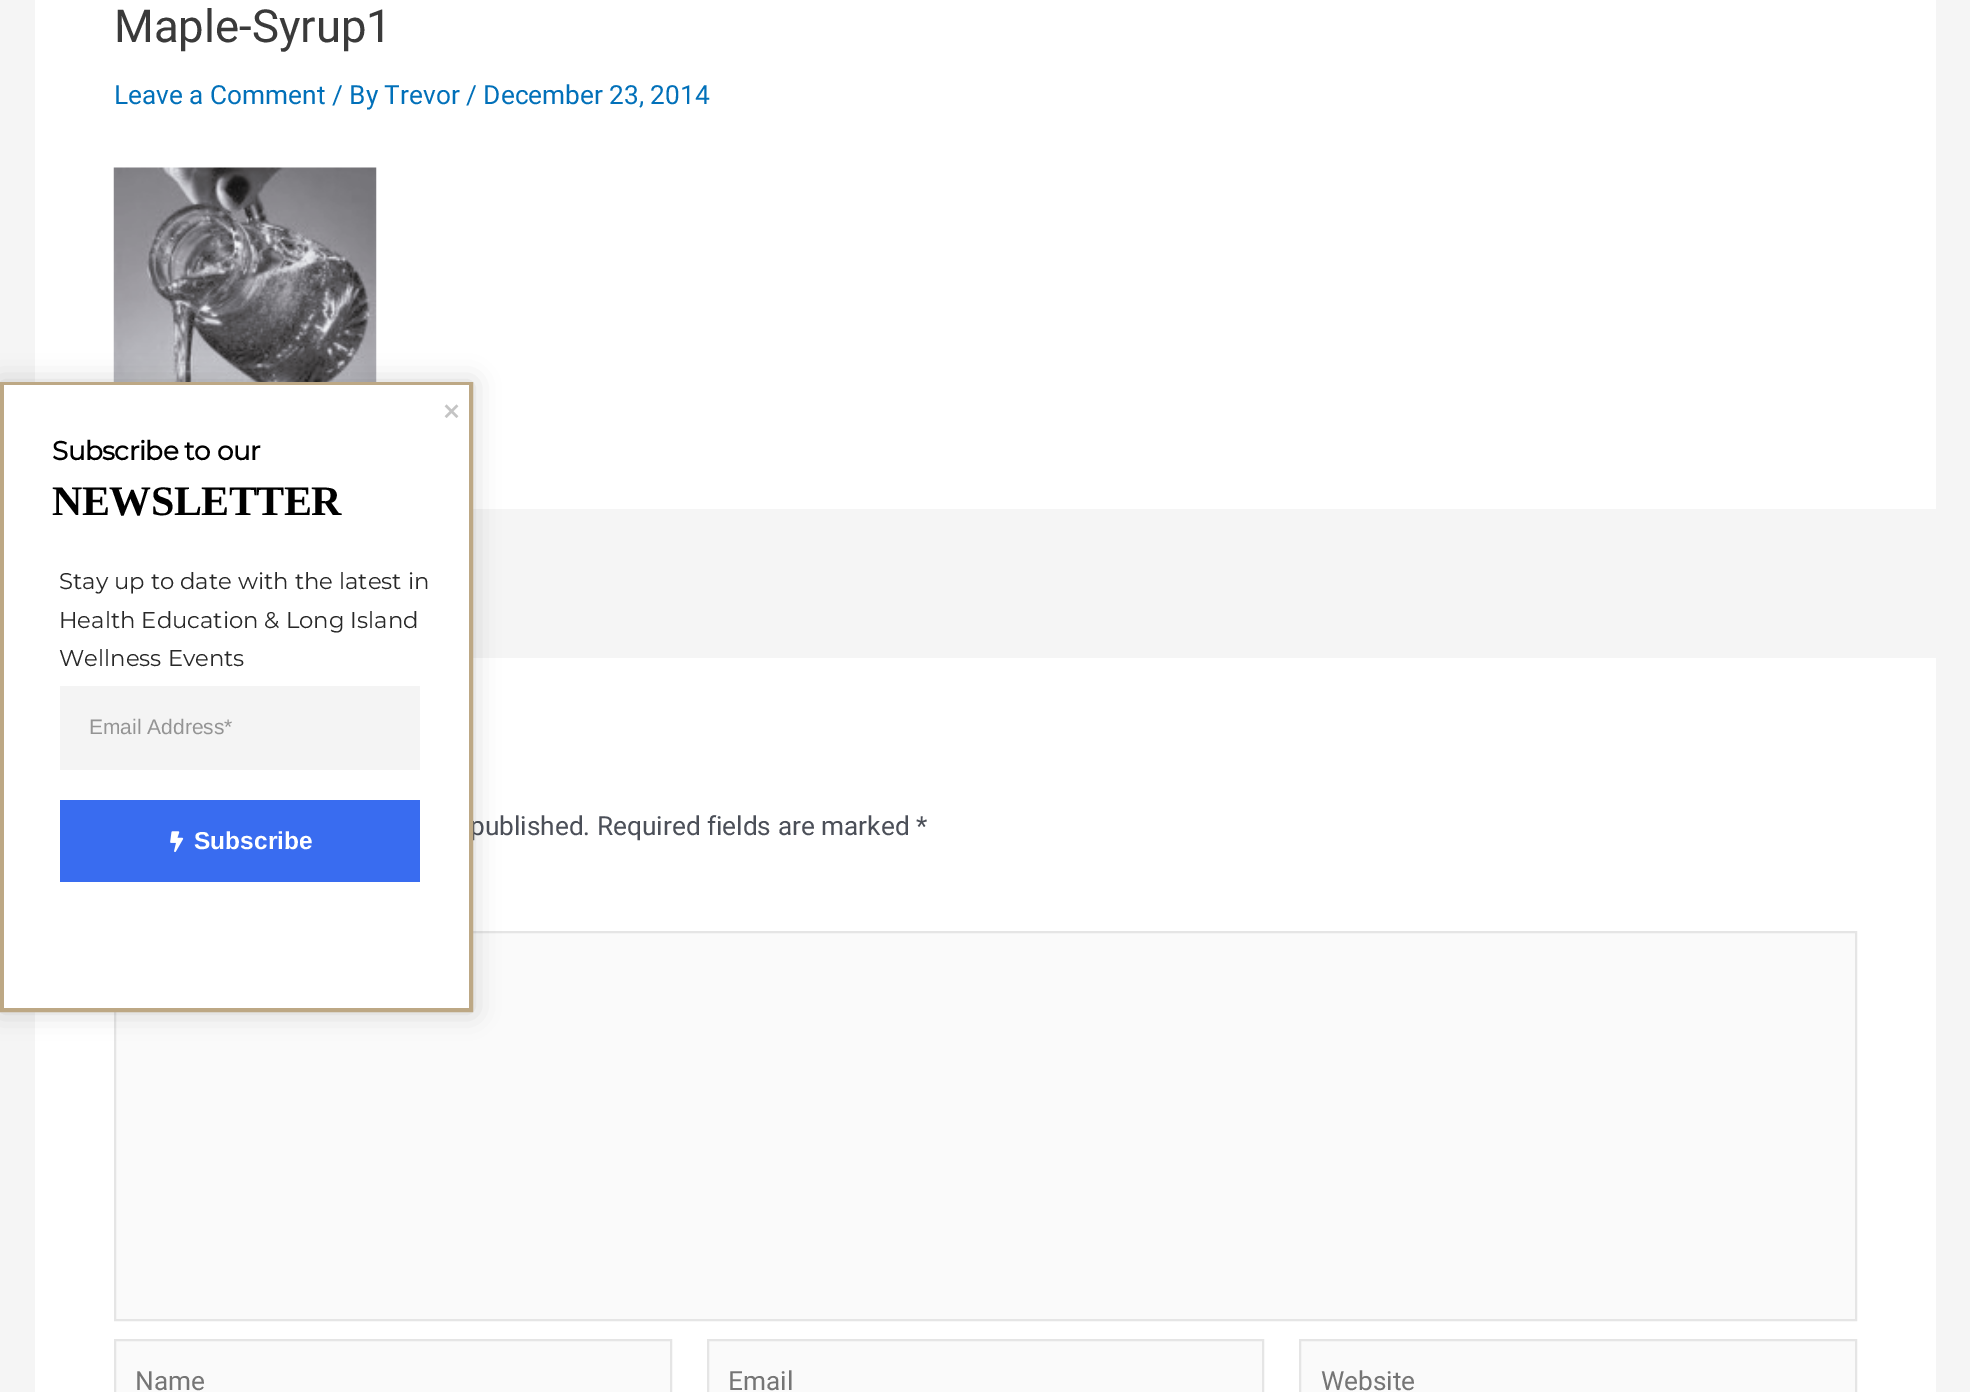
%!PS-Adobe-3.0
%%BoundingBox: 0 0 1970 1392
%%LanguageLevel: 3
%%Pages: 1
%%EndComments
%%BeginProlog
/setink { 3 { 255 div 3 1 roll } repeat setrgbcolor } def
/usefont { [ exch dup neg 0 0 3 -1 roll 0 0 ] selectfont } def
/drawtext { setink usefont moveto show } def
/fillbox { setink rectfill } def
/setalpha { dup .setfillconstantalpha .setstrokeconstantalpha } def
/rrect { 5 dict begin { /r /h /w /y /x } { exch def } forall
  x r add y moveto x w add y 2 copy h add r arct x w add y h add x 1 index r arct
  x y h add x y r arct x y 2 copy exch w add exch r arct closepath end } def
/softshadow { 12 dict begin { /a /b /q /h /w /y /x } { exch def } forall gsave /was 0 def
  9 -2 -9 { dup b mul 4 div /e exch def 1 sub .425 mul 2.718 exch exp 1 add a .99 .min exch div /now exch def
    1 1 now sub 1 was sub div sub setalpha /was now def
    w h .min e 2 mul add 0 gt { x e sub y e sub w e 2 mul add h e 2 mul add
      q e add b .6 mul add w h .min 2 div e add .min 0 .max rrect fill } if } for grestore end } def
/drawimage { 5 dict begin { /h /w /y /x /name } { exch def } forall
  gsave x y translate w h scale
  w h 8 [w 0 0 h 0 0] name (r) file false 3 colorimage grestore end } def
%%EndProlog
%%BeginSetup
<< /PageSize [1970 1392] /PageUsesTransparency true >> setpagedevice
%%EndSetup
%%Page: 1 1
0 .pushpdf14devicefilter
0 1392 translate 1 -1 scale
4 setmiterlimit
0 0 1970 1392 245 245 245 fillbox
35 0 1901 509 255 255 255 fillbox
(Maple-Syrup1) 114 42 /Roboto-Regular 45.5 58 58 58 drawtext
(Leave a Comment / By Trevor / December 23, 2014) 114 104 /Roboto-Regular 26.25 1 112 185 drawtext
(assets/img1.rgb) 113 167 264 215 drawimage
35 658 1901 734 255 255 255 fillbox
(published. Required fields are marked *) 470 835 /Roboto-Regular 26.25 75 79 88 drawtext
250 250 250 setink
115 932 moveto 1856 932 lineto 1856 1320 lineto 115 1320 lineto closepath gsave fill grestore
229 229 229 setink
2 setlinewidth
stroke
250 250 250 setink
115 1340 moveto 671 1340 lineto 671 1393 lineto 115 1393 lineto closepath gsave fill grestore
229 229 229 setink
stroke
(Name) 135 1390 /Roboto-Regular 26.25 117 117 117 drawtext
250 250 250 setink
708 1340 moveto 1263 1340 lineto 1263 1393 lineto 708 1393 lineto closepath gsave fill grestore
229 229 229 setink
stroke
(Email) 728 1390 /Roboto-Regular 26.25 117 117 117 drawtext
250 250 250 setink
1300 1340 moveto 1856 1340 lineto 1856 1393 lineto 1300 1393 lineto closepath gsave fill grestore
229 229 229 setink
stroke
(Website) 1321 1390 /Roboto-Regular 26.25 117 117 117 drawtext
0 0 0 setink
0 382 473 630 0 13 0.17 softshadow
189 168 133 setink
4 setlinewidth
2 384 469 626 rectstroke
4 385 465 623 255 255 255 fillbox
(assets/img2.rgb) 444 404 15 14 drawimage
/Montserrat-Bold 26.25 usefont
0 0 0 setink
52 460 moveto -0.5 0 (Subscribe to our) ashow
/LiberationSerif-Bold 42 usefont
52 515 moveto -0.5 0 (NEWSLETTER) ashow
(Stay up to date with the latest in) 59 589 /Montserrat-Thin 22.75 40 40 40 drawtext
(Health Education & Long Island) 59 628 /Montserrat-Thin 22.75 40 40 40 drawtext
(Wellness Events) 59 666 /Montserrat-Thin 22.75 40 40 40 drawtext
60 686 360 84 244 244 244 fillbox
(Email Address*) 89 734 /LiberationSans-Regular 21 148 148 148 drawtext
60 800 360 82 57 108 240 fillbox
(assets/img3.rgb) 170 831 14 21 drawimage
(Subscribe) 194 849 /LiberationSans-Bold 24.5 255 255 255 drawtext
.poppdf14devicefilter showpage
%%EOF
